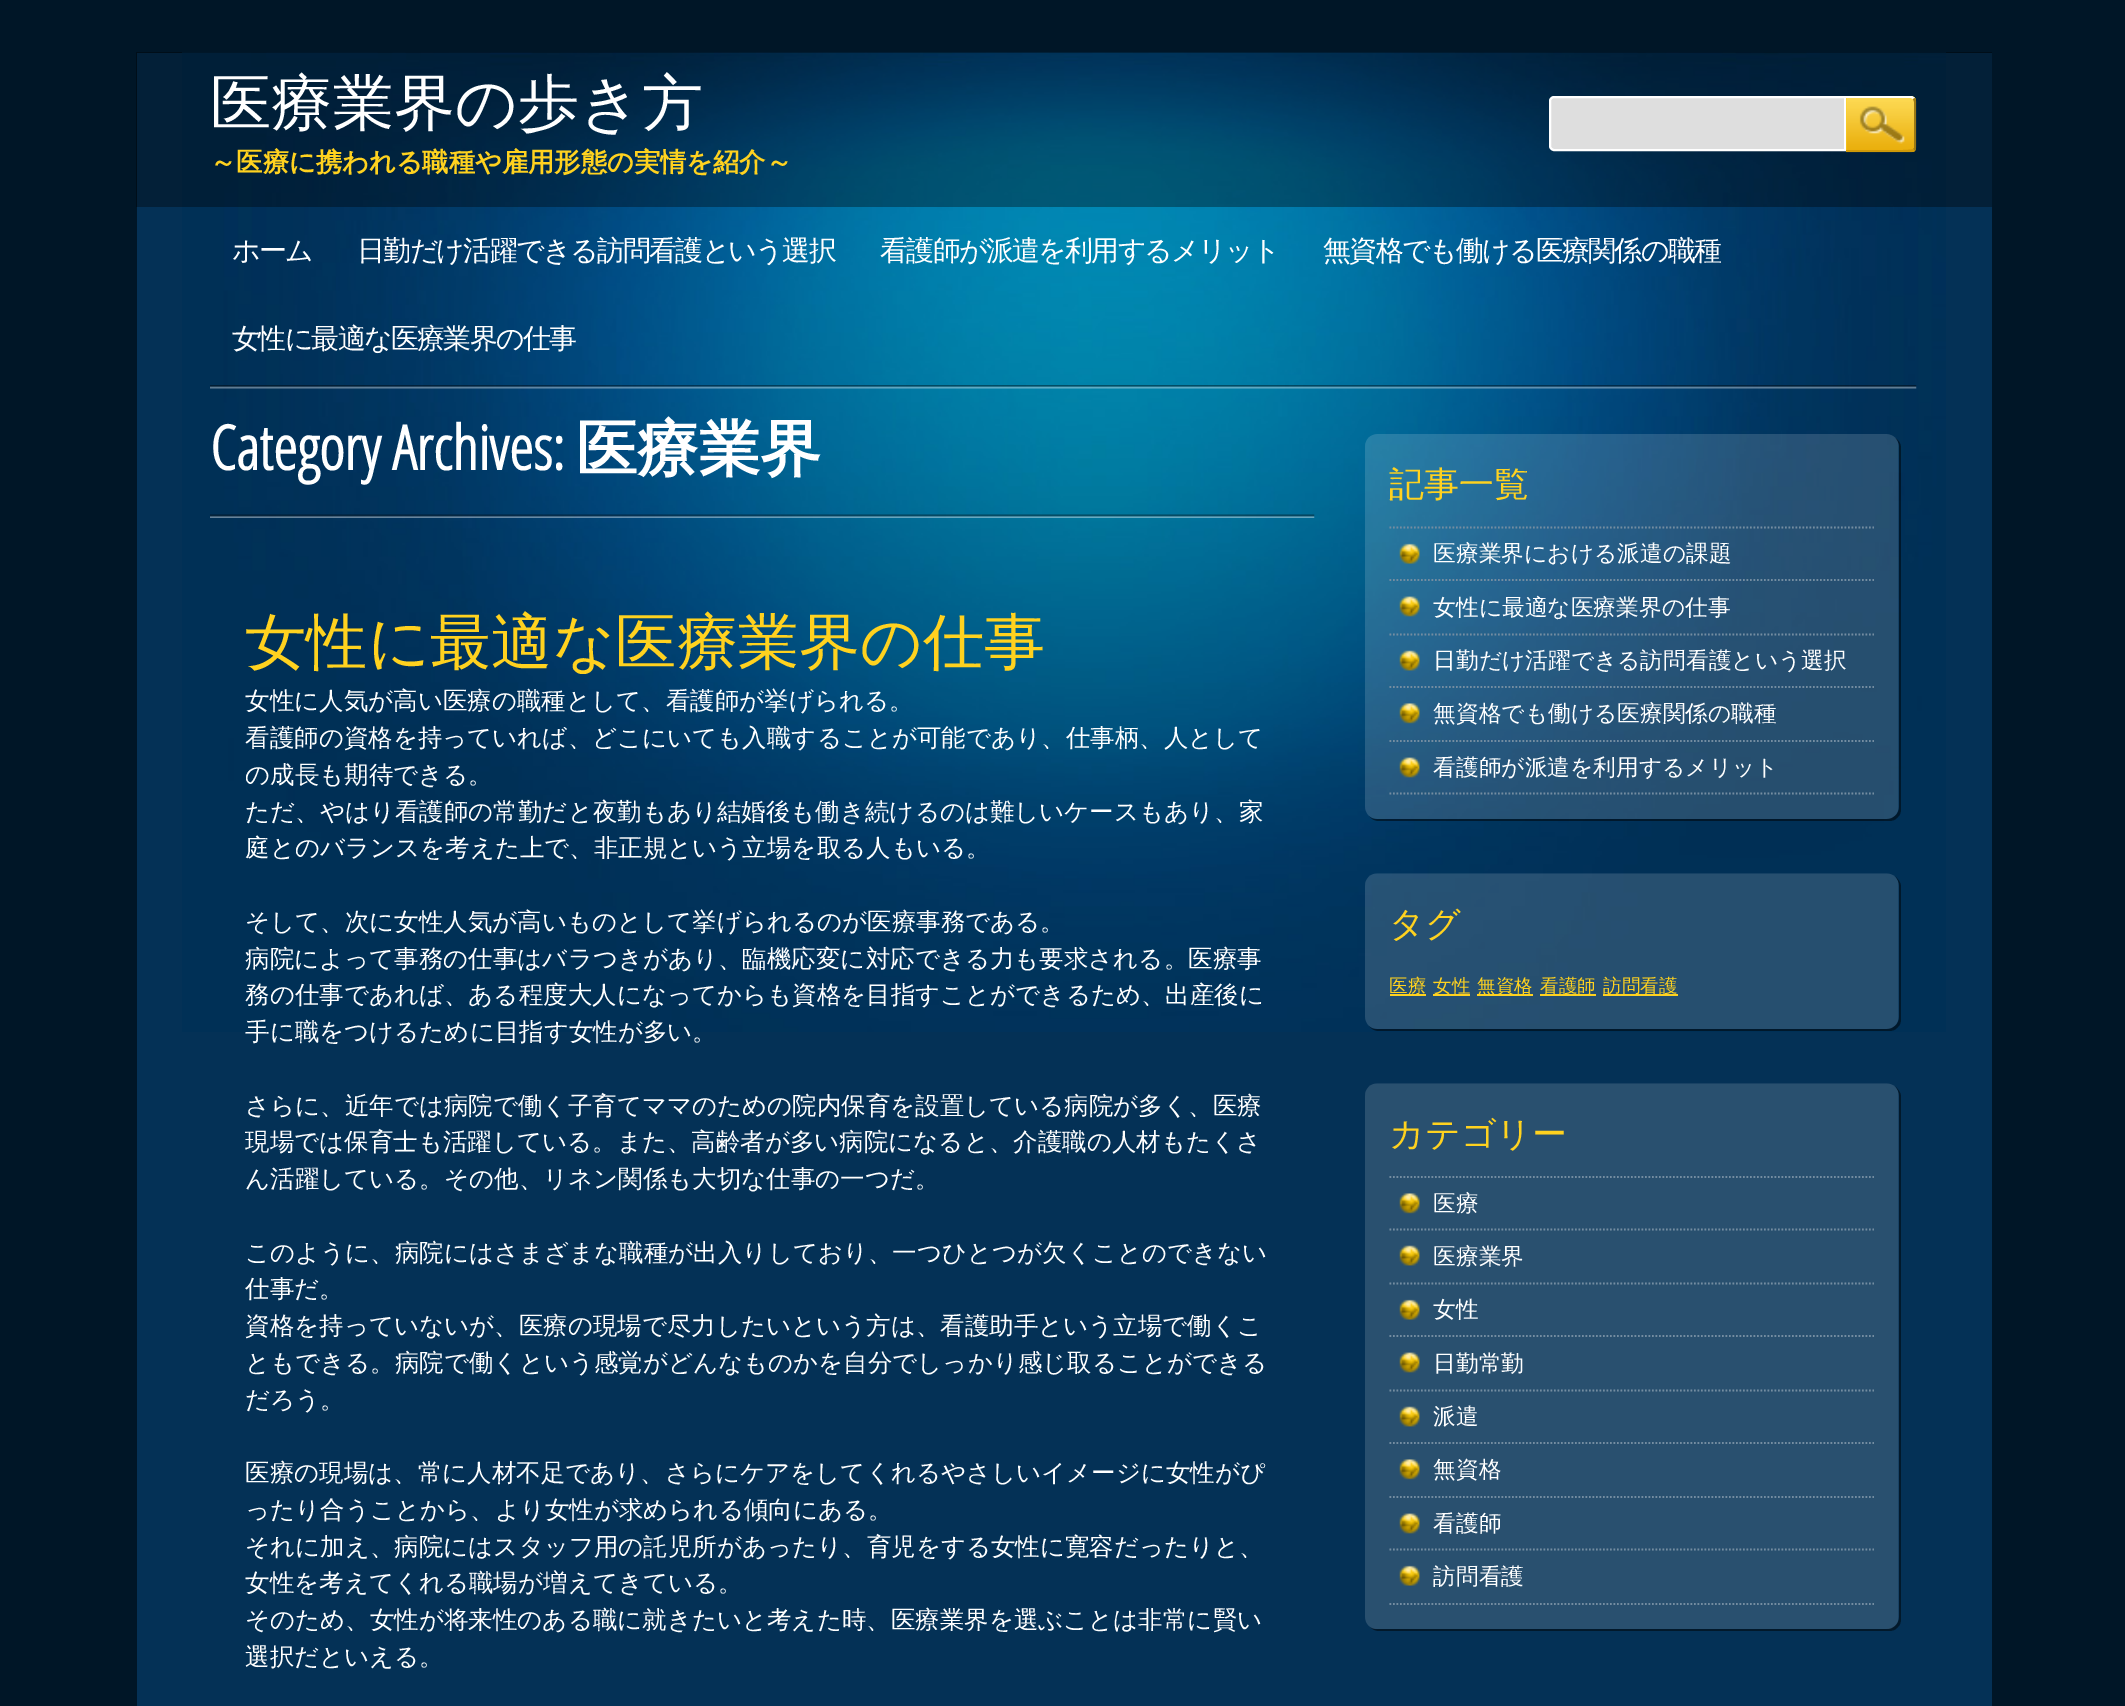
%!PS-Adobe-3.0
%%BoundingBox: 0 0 2125 1706
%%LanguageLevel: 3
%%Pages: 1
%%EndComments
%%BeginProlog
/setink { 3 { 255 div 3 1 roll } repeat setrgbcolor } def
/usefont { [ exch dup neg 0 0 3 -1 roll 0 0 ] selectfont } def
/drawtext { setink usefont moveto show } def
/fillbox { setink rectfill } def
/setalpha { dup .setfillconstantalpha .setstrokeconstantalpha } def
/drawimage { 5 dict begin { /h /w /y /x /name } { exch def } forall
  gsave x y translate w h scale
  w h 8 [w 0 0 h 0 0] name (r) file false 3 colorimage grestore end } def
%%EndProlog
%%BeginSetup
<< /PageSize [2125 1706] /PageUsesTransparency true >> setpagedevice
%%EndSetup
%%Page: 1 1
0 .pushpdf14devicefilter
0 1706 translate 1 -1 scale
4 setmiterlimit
0 0 2125 1706 0 22 39 fillbox
137 53 1855 1653 4 49 86 fillbox
(assets/img1.rgb) 182 52 1764 980 drawimage
0.35 setalpha
136 52 1856 155 0 0 0 fillbox
1 setalpha
(医療業界の歩き方) 210 124 /WenQuanYiZenHei-Medium 61.25 255 255 255 drawtext
(～医療に携われる職種や雇用形態の実情を紹介～) 210 171 /WenQuanYiZenHei-Bold 26.25 255 210 31 drawtext
222 222 222 setink
1554 97 moveto 1845 97 lineto 1845 150 lineto 1554 150 lineto 1552 150 1550 148 1550 146 curveto 1550 101 lineto 1550 99 1552 97 1554 97 curveto closepath gsave fill grestore
255 255 255 setink
2 setlinewidth
stroke
255 210 31 setink
1846 96 moveto 1911 96 lineto 1914 96 1916 98 1916 101 curveto 1916 147 lineto 1916 150 1914 152 1911 152 curveto 1846 152 lineto closepath fill
(assets/img2.rgb) 1846 96 71 57 drawimage
255 255 255 setink
1846 96 moveto 1912 96 lineto 1915 98 lineto 1913 99 lineto 1911 98 lineto 1846 98 lineto closepath fill
156 121 20 setink
1913 149 moveto 1914 148 lineto 1914 110 lineto 1914 108 1915 102 1913 99 curveto 1915 98 lineto 1916 99 1916 100 1916 102 curveto 1916 147 lineto 1916 148 1916 150 1915 151 curveto closepath fill
208 153 7 setink
1846 150 moveto 1854 150 1912 151 1913 149 curveto 1915 151 lineto 1914 152 1912 152 1911 152 curveto 1846 152 lineto closepath fill
/WenQuanYiZenHei-Medium 28 usefont
255 255 255 setink
232 260 moveto -1.75 0 (ホーム) ashow
357 260 moveto -1.75 0 (日勤だけ活躍できる訪問看護という選択) ashow
880 260 moveto -1.75 0 (看護師が派遣を利用するメリット) ashow
1323 260 moveto -1.75 0 (無資格でも働ける医療関係の職種) ashow
232 348 moveto -1.75 0 (女性に最適な医療業界の仕事) ashow
(assets/img3.rgb) 210 385 1707 4 drawimage
(assets/img4.rgb) 210 514 1105 4 drawimage
(Category Archives:) 210 470 /OpenSansCondensed-Bold 61.25 255 255 255 drawtext
(医療業界) 576 470 /WenQuanYiZenHei-Bold 61.25 255 255 255 drawtext
(女性に最適な医療業界の仕事) 245 663 /WenQuanYiZenHei-Medium 61.25 255 210 31 drawtext
(女性に人気が高い医療の職種として、看護師が挙げられる。) 245 709 /WenQuanYiZenHei-Medium 24.5 255 255 255 drawtext
(看護師の資格を持っていれば、どこにいても入職することが可能であり、仕事柄、人として) 245 746 /WenQuanYiZenHei-Medium 24.5 255 255 255 drawtext
(の成長も期待できる。) 245 783 /WenQuanYiZenHei-Medium 24.5 255 255 255 drawtext
(ただ、やはり看護師の常勤だと夜勤もあり結婚後も働き続けるのは難しいケースもあり、家) 245 820 /WenQuanYiZenHei-Medium 24.5 255 255 255 drawtext
(庭とのバランスを考えた上で、非正規という立場を取る人もいる。) 245 856 /WenQuanYiZenHei-Medium 24.5 255 255 255 drawtext
(そして、次に女性人気が高いものとして挙げられるのが医療事務である。) 245 930 /WenQuanYiZenHei-Medium 24.5 255 255 255 drawtext
(病院によって事務の仕事はバラつきがあり、臨機応変に対応できる力も要求される。医療事) 245 967 /WenQuanYiZenHei-Medium 24.5 255 255 255 drawtext
(務の仕事であれば、ある程度大人になってからも資格を目指すことができるため、出産後に) 245 1003 /WenQuanYiZenHei-Medium 24.5 255 255 255 drawtext
(手に職をつけるために目指す女性が多い。) 245 1040 /WenQuanYiZenHei-Medium 24.5 255 255 255 drawtext
(さらに、近年では病院で働く子育てママのための院内保育を設置している病院が多く、医療) 245 1114 /WenQuanYiZenHei-Medium 24.5 255 255 255 drawtext
(現場では保育士も活躍している。また、高齢者が多い病院になると、介護職の人材もたくさ) 245 1150 /WenQuanYiZenHei-Medium 24.5 255 255 255 drawtext
(ん活躍している。その他、リネン関係も大切な仕事の一つだ。) 245 1187 /WenQuanYiZenHei-Medium 24.5 255 255 255 drawtext
(このように、病院にはさまざまな職種が出入りしており、一つひとつが欠くことのできない) 245 1261 /WenQuanYiZenHei-Medium 24.5 255 255 255 drawtext
(仕事だ。) 245 1297 /WenQuanYiZenHei-Medium 24.5 255 255 255 drawtext
(資格を持っていないが、医療の現場で尽力したいという方は、看護助手という立場で働くこ) 245 1334 /WenQuanYiZenHei-Medium 24.5 255 255 255 drawtext
(ともできる。病院で働くという感覚がどんなものかを自分でしっかり感じ取ることができる) 245 1371 /WenQuanYiZenHei-Medium 24.5 255 255 255 drawtext
(だろう。) 245 1408 /WenQuanYiZenHei-Medium 24.5 255 255 255 drawtext
(医療の現場は、常に人材不足であり、さらにケアをしてくれるやさしいイメージに女性がぴ) 245 1481 /WenQuanYiZenHei-Medium 24.5 255 255 255 drawtext
(ったり合うことから、より女性が求められる傾向にある。) 245 1518 /WenQuanYiZenHei-Medium 24.5 255 255 255 drawtext
(それに加え、病院にはスタッフ用の託児所があったり、育児をする女性に寛容だったりと、) 245 1555 /WenQuanYiZenHei-Medium 24.5 255 255 255 drawtext
(女性を考えてくれる職場が増えてきている。) 245 1591 /WenQuanYiZenHei-Medium 24.5 255 255 255 drawtext
(そのため、女性が将来性のある職に就きたいと考えた時、医療業界を選ぶことは非常に賢い) 245 1628 /WenQuanYiZenHei-Medium 24.5 255 255 255 drawtext
(選択だといえる。) 245 1665 /WenQuanYiZenHei-Medium 24.5 255 255 255 drawtext
0.5 setalpha
0 0 0 setink
1369 816 moveto 1371 819 1375 821 1379 821 curveto 1889 821 lineto 1896 821 1901 816 1901 809 curveto 1901 448 lineto 1901 444 1899 440 1895 438 curveto 1897 440 1899 443 1899 446 curveto 1899 807 lineto 1899 814 1893 819 1886 819 curveto 1377 819 lineto 1374 819 1371 818 1369 816 curveto closepath fill
1 setalpha
(assets/img5.rgb) 1365 434 534 385 drawimage
(記事一覧) 1389 496 /WenQuanYiZenHei-Medium 35 255 210 31 drawtext
(assets/img6.rgb) 1399 543 21 21 drawimage
116 141 161 setink
1.8 setlinewidth
[1.75 1.75] 0 setdash
1389.5 527.5 moveto 1874 527.5 lineto stroke
1389.5 580 moveto 1874 580 lineto stroke
(医療業界における派遣の課題) 1433 561 /WenQuanYiZenHei-Medium 22.75 255 255 255 drawtext
(assets/img7.rgb) 1399 596 21 21 drawimage
116 141 161 setink
1389.5 634.5 moveto 1874 634.5 lineto stroke
(女性に最適な医療業界の仕事) 1433 615 /WenQuanYiZenHei-Medium 22.75 255 255 255 drawtext
(assets/img8.rgb) 1399 650 21 21 drawimage
116 141 161 setink
1389.5 687 moveto 1874 687 lineto stroke
(日勤だけ活躍できる訪問看護という選択) 1433 668 /WenQuanYiZenHei-Medium 22.75 255 255 255 drawtext
(assets/img9.rgb) 1399 703 21 21 drawimage
116 141 161 setink
1389.5 741 moveto 1874 741 lineto stroke
(無資格でも働ける医療関係の職種) 1433 721 /WenQuanYiZenHei-Medium 22.75 255 255 255 drawtext
(assets/img10.rgb) 1399 757 21 21 drawimage
116 141 161 setink
1389.5 793.5 moveto 1874 793.5 lineto stroke
(看護師が派遣を利用するメリット) 1433 775 /WenQuanYiZenHei-Medium 22.75 255 255 255 drawtext
0.5 setalpha
0 0 0 setink
1369 1026 moveto 1371 1029 1375 1031 1379 1031 curveto 1889 1031 lineto 1896 1031 1901 1026 1901 1019 curveto 1901 887 lineto 1901 882 1898 879 1895 876 curveto 1897 879 1899 882 1899 886 curveto 1899 1017 lineto 1899 1024 1893 1029 1886 1029 curveto 1377 1029 lineto 1374 1029 1371 1028 1369 1026 curveto closepath fill
1 setalpha
(assets/img11.rgb) 1365 873 534 156 drawimage
(タグ) 1389 936 /WenQuanYiZenHei-Medium 35 255 210 31 drawtext
1390 994 36 2 255 210 31 fillbox
(医療) 1389 992 /WenQuanYiZenHei-Medium 18.5 255 210 31 drawtext
1433 994 37 2 255 210 31 fillbox
(女性) 1433 992 /WenQuanYiZenHei-Medium 18.5 255 210 31 drawtext
1477 994 56 2 255 210 31 fillbox
(無資格) 1477 992 /WenQuanYiZenHei-Medium 18.5 255 210 31 drawtext
1540 994 56 2 255 210 31 fillbox
(看護師) 1540 992 /WenQuanYiZenHei-Medium 18.5 255 210 31 drawtext
1603 994 75 2 255 210 31 fillbox
(訪問看護) 1603 992 /WenQuanYiZenHei-Medium 18.5 255 210 31 drawtext
2 25 43 setink
1370 1627 moveto 1372 1629 1375 1631 1379 1631 curveto 1889 1631 lineto 1896 1631 1901 1626 1901 1619 curveto 1901 1097 lineto 1901 1092 1898 1089 1895 1086 curveto 1897 1089 1899 1092 1899 1096 curveto 1899 1617 lineto 1899 1624 1893 1629 1886 1629 curveto 1377 1629 lineto 1374 1629 1372 1628 1370 1627 curveto closepath fill
(assets/img12.rgb) 1365 1083 534 546 drawimage
(カテゴリー) 1389 1146 /WenQuanYiZenHei-Medium 35 255 210 31 drawtext
(assets/img13.rgb) 1399 1193 21 21 drawimage
116 141 161 setink
1389.5 1177 moveto 1874 1177 lineto stroke
1389.5 1229.5 moveto 1874 1229.5 lineto stroke
(医療) 1433 1211 /WenQuanYiZenHei-Medium 22.75 255 255 255 drawtext
(assets/img14.rgb) 1399 1245 21 21 drawimage
116 141 161 setink
1389.5 1283.5 moveto 1874 1283.5 lineto stroke
(医療業界) 1433 1264 /WenQuanYiZenHei-Medium 22.75 255 255 255 drawtext
(assets/img15.rgb) 1399 1299 21 21 drawimage
116 141 161 setink
1389.5 1336 moveto 1874 1336 lineto stroke
(女性) 1433 1317 /WenQuanYiZenHei-Medium 22.75 255 255 255 drawtext
(assets/img16.rgb) 1399 1352 21 21 drawimage
116 141 161 setink
1389.5 1390.5 moveto 1874 1390.5 lineto stroke
(日勤常勤) 1433 1371 /WenQuanYiZenHei-Medium 22.75 255 255 255 drawtext
(assets/img14.rgb) 1399 1406 21 21 drawimage
116 141 161 setink
1389.5 1443 moveto 1874 1443 lineto stroke
(派遣) 1433 1424 /WenQuanYiZenHei-Medium 22.75 255 255 255 drawtext
(assets/img13.rgb) 1399 1459 21 21 drawimage
116 141 161 setink
1389.5 1497 moveto 1874 1497 lineto stroke
(無資格) 1433 1477 /WenQuanYiZenHei-Medium 22.75 255 255 255 drawtext
(assets/img16.rgb) 1399 1513 21 21 drawimage
116 141 161 setink
1389.5 1549.5 moveto 1874 1549.5 lineto stroke
(看護師) 1433 1531 /WenQuanYiZenHei-Medium 22.75 255 255 255 drawtext
(assets/img15.rgb) 1399 1565 21 21 drawimage
116 141 161 setink
1389.5 1604 moveto 1874 1604 lineto stroke
(訪問看護) 1433 1584 /WenQuanYiZenHei-Medium 22.75 255 255 255 drawtext
.poppdf14devicefilter showpage
%%EOF
